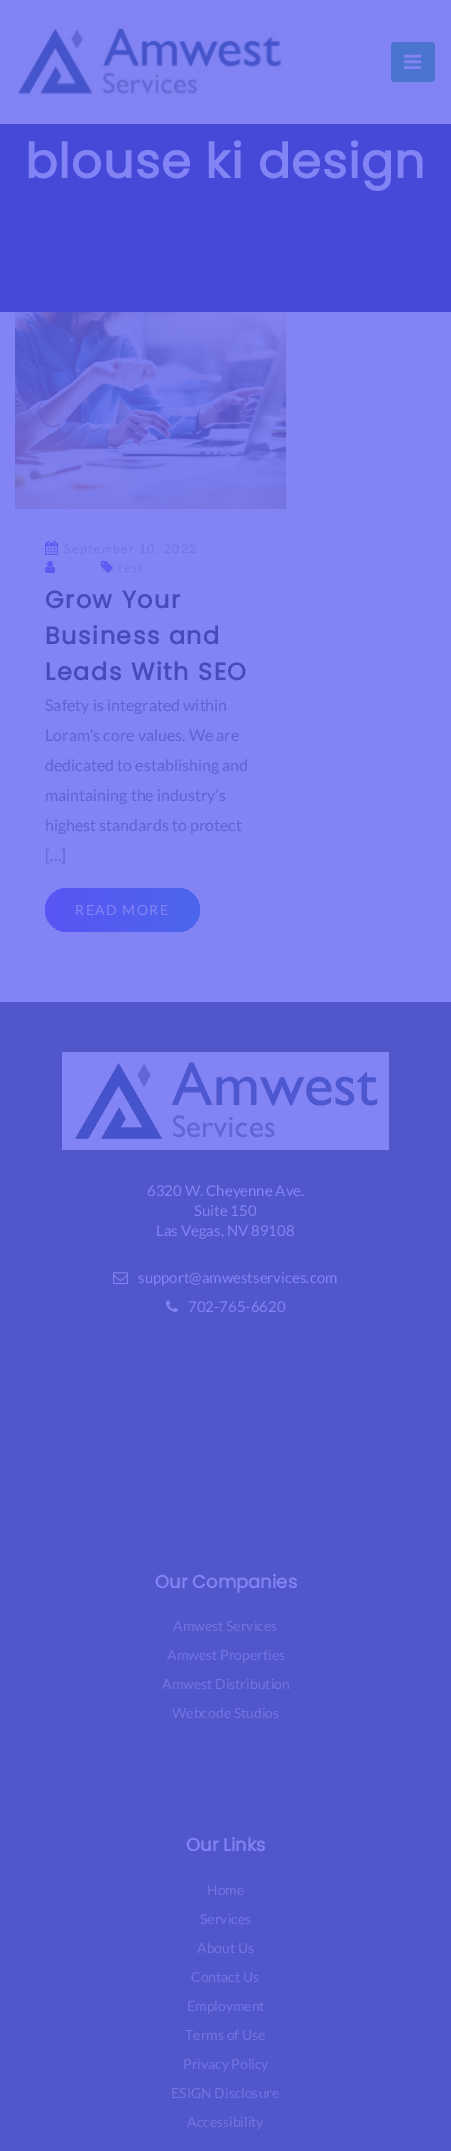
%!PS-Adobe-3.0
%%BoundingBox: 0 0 451 2151
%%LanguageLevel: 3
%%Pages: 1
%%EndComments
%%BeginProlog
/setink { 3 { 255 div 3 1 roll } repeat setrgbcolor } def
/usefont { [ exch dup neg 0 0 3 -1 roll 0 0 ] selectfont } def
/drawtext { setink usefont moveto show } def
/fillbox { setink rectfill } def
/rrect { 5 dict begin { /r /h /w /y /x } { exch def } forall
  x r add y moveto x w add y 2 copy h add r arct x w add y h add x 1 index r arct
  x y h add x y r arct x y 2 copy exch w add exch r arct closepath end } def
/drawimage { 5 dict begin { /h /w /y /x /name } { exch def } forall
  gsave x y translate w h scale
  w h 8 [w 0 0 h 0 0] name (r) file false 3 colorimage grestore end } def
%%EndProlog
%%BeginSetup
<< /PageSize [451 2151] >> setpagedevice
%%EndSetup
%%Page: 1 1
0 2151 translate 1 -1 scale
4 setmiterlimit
0 0 451 2151 130 131 244 fillbox
(assets/img1.rgb) 16 25 268 72 drawimage
75 116 208 setink
391 42 44 40 4 rrect fill
(assets/img2.rgb) 404 54 18 15 drawimage
0 124 451 188 70 72 216 fillbox
/Poppins-Bold 48 usefont
130 131 244 setink
25 178 moveto 1 0 (blouse ki design) ashow
(assets/img3.rgb) 15 312 271 197 drawimage
(assets/img4.rgb) 45 541 13 14 drawimage
/Lato-Regular 12 usefont
114 116 228 setink
64 553 moveto 1.5 0 (September 10, 2022) ashow
(assets/img5.rgb) 45 561 10 12 drawimage
(assets/img6.rgb) 101 561 12 12 drawimage
118 572 moveto 1.5 0 (test) ashow
/Poppins-Bold 24 usefont
72 74 186 setink
45 608 moveto 1.5 0 (Grow Your) ashow
45 644 moveto 1.5 0 (Business and) ashow
45 680 moveto 1.5 0 (Leads With SEO) ashow
(Safety is integrated within) 45 711 /Lato-Regular 16 96 98 214 drawtext
(Loram’s core values. We are) 45 741 /Lato-Regular 16 96 98 214 drawtext
(dedicated to establishing and) 45 771 /Lato-Regular 16 96 98 214 drawtext
(maintaining the industry’s) 45 801 /Lato-Regular 16 96 98 214 drawtext
(highest standards to protect) 45 831 /Lato-Regular 16 96 98 214 drawtext
([…]) 45 861 /Lato-Regular 16 96 98 214 drawtext
gsave 45 888 155 44 22 rrect clip newpath
<< /ShadingType 2 /ColorSpace /DeviceRGB /Coords [200 910 45 910] /Extend [true true] /Function << /FunctionType 2 /Domain [0 1] /C0 [0.294 0.4 0.925] /C1 [0.353 0.333 0.953] /N 1 >> >> shfill grestore
/Lato-Regular 14 usefont
130 131 244 setink
75 915 moveto 1.5 0 (READ MORE) ashow
0 1002 451 1149 82 86 203 fillbox
(assets/img7.rgb) 62 1052 327 98 drawimage
(6320 W. Cheyenne Ave.) 147 1196 /Lato-Regular 15 130 131 244 drawtext
(Suite 150) 194 1216 /Lato-Regular 15 130 131 244 drawtext
(Las Vegas, NV 89108) 156 1236 /Lato-Regular 15 130 131 244 drawtext
(assets/img8.rgb) 113 1272 15 13 drawimage
(support@amwestservices.com) 138 1283 /Lato-Regular 15 130 131 244 drawtext
(assets/img9.rgb) 166 1300 12 12 drawimage
(702-765-6620) 188 1312 /Lato-Regular 15 130 131 244 drawtext
(Our Companies) 155 1588 /Poppins-Bold 18 130 131 244 drawtext
(Amwest Services) 173 1631 /Lato-Regular 14 114 116 228 drawtext
(Amwest Properties) 167 1660 /Lato-Regular 14 114 116 228 drawtext
(Amwest Distribution) 162 1689 /Lato-Regular 14 114 116 228 drawtext
(Webcode Studios) 172 1718 /Lato-Regular 14 114 116 228 drawtext
(Our Links) 186 1851 /Poppins-Bold 18 130 131 244 drawtext
(Home) 207 1895 /Lato-Regular 14 114 116 228 drawtext
(Services) 200 1924 /Lato-Regular 14 114 116 228 drawtext
(About Us) 197 1953 /Lato-Regular 14 114 116 228 drawtext
(Contact Us) 191 1982 /Lato-Regular 14 114 116 228 drawtext
(Employment) 187 2011 /Lato-Regular 14 114 116 228 drawtext
(Terms of Use) 185 2040 /Lato-Regular 14 114 116 228 drawtext
(Privacy Policy) 183 2069 /Lato-Regular 14 114 116 228 drawtext
(ESIGN Disclosure) 171 2098 /Lato-Regular 14 114 116 228 drawtext
(Accessibility) 187 2127 /Lato-Regular 14 114 116 228 drawtext
showpage
%%EOF
